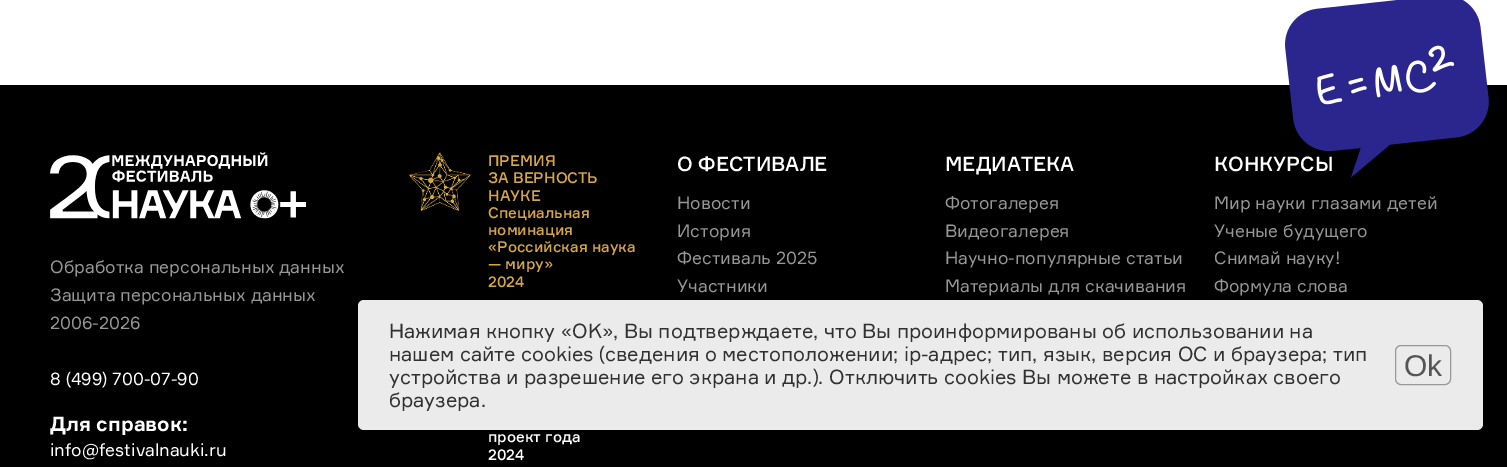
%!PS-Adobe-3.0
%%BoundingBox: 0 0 1507 467
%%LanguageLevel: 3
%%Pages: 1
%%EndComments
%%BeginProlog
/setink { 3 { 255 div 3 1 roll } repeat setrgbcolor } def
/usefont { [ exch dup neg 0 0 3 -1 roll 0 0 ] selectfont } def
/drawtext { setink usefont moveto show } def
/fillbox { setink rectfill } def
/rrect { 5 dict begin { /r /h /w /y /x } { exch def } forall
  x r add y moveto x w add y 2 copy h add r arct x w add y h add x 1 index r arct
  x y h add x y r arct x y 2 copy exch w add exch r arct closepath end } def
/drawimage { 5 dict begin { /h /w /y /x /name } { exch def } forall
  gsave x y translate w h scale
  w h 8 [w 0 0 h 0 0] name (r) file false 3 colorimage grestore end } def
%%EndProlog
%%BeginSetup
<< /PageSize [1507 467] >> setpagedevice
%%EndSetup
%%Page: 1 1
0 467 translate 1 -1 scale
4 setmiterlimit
0 0 1507 467 255 255 255 fillbox
0 85 1507 382 0 0 0 fillbox
(assets/img1.rgb) 50 152 256 67 drawimage
(Обработка персональных данных) 50 273 /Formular-Regular 17.5 151 151 151 drawtext
(Защита персональных данных) 50 301 /Formular-Regular 17.5 151 151 151 drawtext
(2006-2026) 50 329 /Formular-Regular 17.5 151 151 151 drawtext
(8 \(499\) 700-07-90) 50 385 /Formular-Regular 17.5 255 255 255 drawtext
(Для справок:) 50 431 /Formular-Bold 20 255 255 255 drawtext
(info@festivalnauki.ru) 50 456 /Formular-Regular 17.5 255 255 255 drawtext
(assets/img2.rgb) 408 152 63 59 drawimage
(ПРЕМИЯ) 488 166 /Formular-Medium 15 213 165 72 drawtext
(ЗА ВЕРНОСТЬ) 488 183 /Formular-Medium 15 213 165 72 drawtext
(НАУКЕ) 488 201 /Formular-Medium 15 213 165 72 drawtext
(Специальная) 488 218 /Formular-Medium 15 213 165 72 drawtext
(номинация) 488 235 /Formular-Medium 15 213 165 72 drawtext
(«Российская наука) 488 252 /Formular-Medium 15 213 165 72 drawtext
(— миру») 488 269 /Formular-Medium 15 213 165 72 drawtext
(2024) 488 287 /Formular-Medium 15 213 165 72 drawtext
(проект года) 488 442 /Formular-Medium 15 255 255 255 drawtext
(2024) 488 460 /Formular-Medium 15 255 255 255 drawtext
(О ФЕСТИВАЛЕ) 677 171 /Formular-Medium 20 255 255 255 drawtext
(Новости) 677 209 /Formular-Regular 17.5 151 151 151 drawtext
(История) 677 237 /Formular-Regular 17.5 151 151 151 drawtext
(Фестиваль 2025) 677 264 /Formular-Regular 17.5 151 151 151 drawtext
(Участники) 677 292 /Formular-Regular 17.5 151 151 151 drawtext
(МЕДИАТЕКА) 945 171 /Formular-Medium 20 255 255 255 drawtext
(Фотогалерея) 945 209 /Formular-Regular 17.5 151 151 151 drawtext
(Видеогалерея) 945 237 /Formular-Regular 17.5 151 151 151 drawtext
(Научно-популярные статьи) 945 264 /Formular-Regular 17.5 151 151 151 drawtext
(Материалы для скачивания) 945 292 /Formular-Regular 17.5 151 151 151 drawtext
(assets/img3.rgb) 1285 0 204 178 drawimage
(КОНКУРСЫ) 1214 171 /Formular-Medium 20 255 255 255 drawtext
(Мир науки глазами детей) 1214 209 /Formular-Regular 17.5 151 151 151 drawtext
(Ученые будущего) 1214 237 /Formular-Regular 17.5 151 151 151 drawtext
(Снимай науку!) 1214 264 /Formular-Regular 17.5 151 151 151 drawtext
(Формула слова) 1214 292 /Formular-Regular 17.5 151 151 151 drawtext
235 235 235 setink
358 300 1125 130 6 rrect fill
(Нажимая кнопку «OK», Вы подтверждаете, что Вы проинформированы об использовании на) 389 338 /Formular-Regular 20 49 49 49 drawtext
(нашем сайте cookies \(сведения о местоположении; ip-адрес; тип, язык, версия ОС и браузера; тип) 389 361 /Formular-Regular 20 49 49 49 drawtext
(устройства и разрешение его экрана и др.\). Отключить cookies Вы можете в настройках своего) 389 384 /Formular-Regular 20 49 49 49 drawtext
(браузера.) 389 407 /Formular-Regular 20 49 49 49 drawtext
153 153 153 setink
1395.5 345.5 55 39 5.5 rrect stroke
(Ok) 1404 376 /LiberationSans-Regular 30 85 85 85 drawtext
showpage
%%EOF
